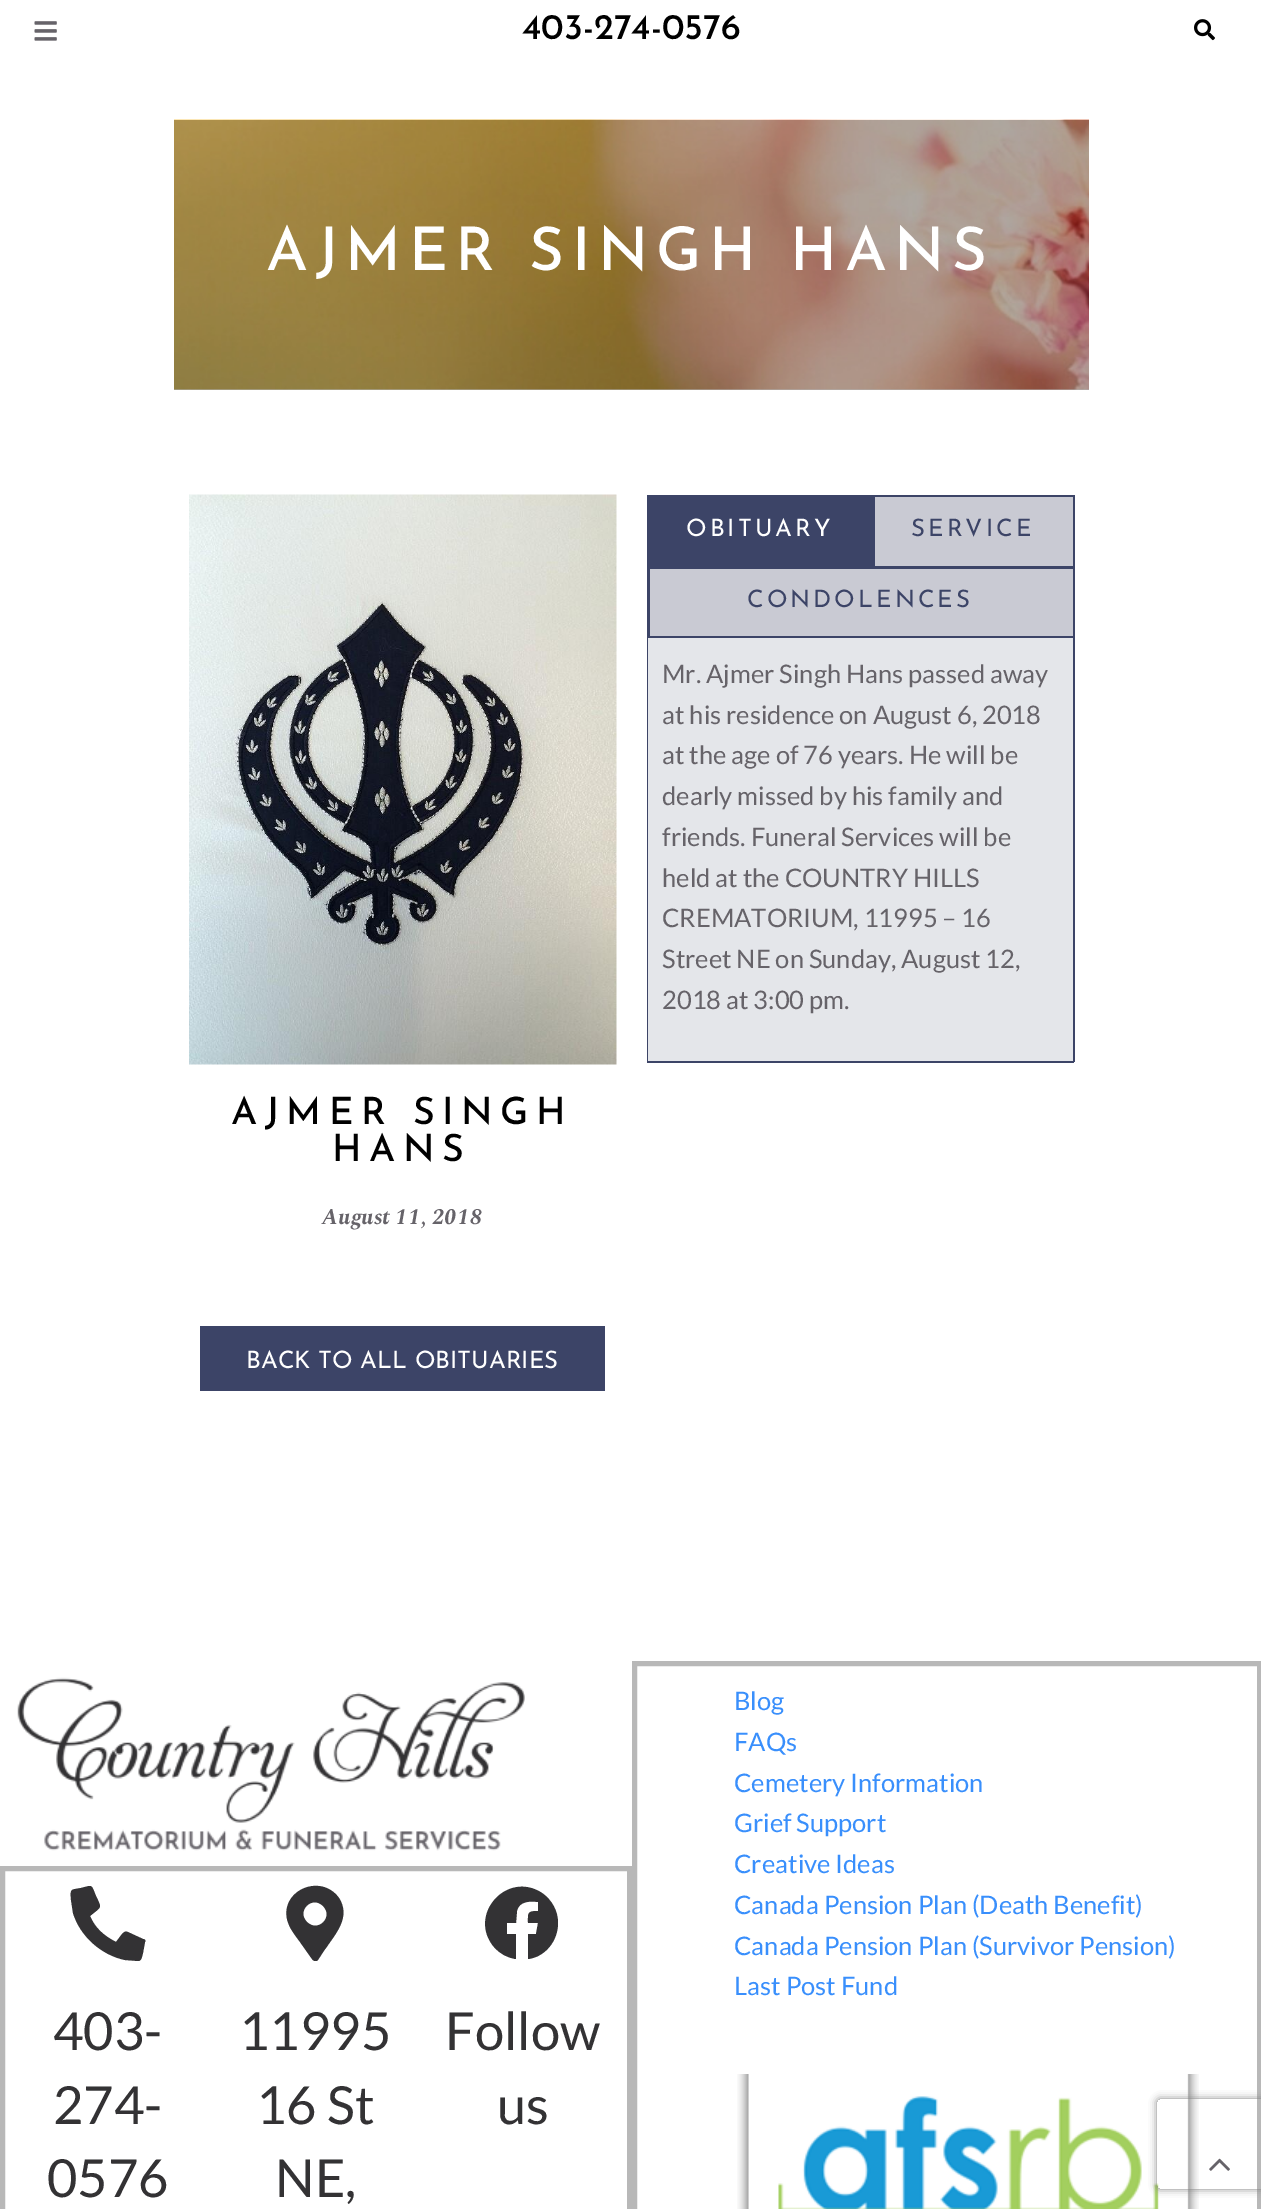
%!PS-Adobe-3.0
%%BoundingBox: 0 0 1261 2209
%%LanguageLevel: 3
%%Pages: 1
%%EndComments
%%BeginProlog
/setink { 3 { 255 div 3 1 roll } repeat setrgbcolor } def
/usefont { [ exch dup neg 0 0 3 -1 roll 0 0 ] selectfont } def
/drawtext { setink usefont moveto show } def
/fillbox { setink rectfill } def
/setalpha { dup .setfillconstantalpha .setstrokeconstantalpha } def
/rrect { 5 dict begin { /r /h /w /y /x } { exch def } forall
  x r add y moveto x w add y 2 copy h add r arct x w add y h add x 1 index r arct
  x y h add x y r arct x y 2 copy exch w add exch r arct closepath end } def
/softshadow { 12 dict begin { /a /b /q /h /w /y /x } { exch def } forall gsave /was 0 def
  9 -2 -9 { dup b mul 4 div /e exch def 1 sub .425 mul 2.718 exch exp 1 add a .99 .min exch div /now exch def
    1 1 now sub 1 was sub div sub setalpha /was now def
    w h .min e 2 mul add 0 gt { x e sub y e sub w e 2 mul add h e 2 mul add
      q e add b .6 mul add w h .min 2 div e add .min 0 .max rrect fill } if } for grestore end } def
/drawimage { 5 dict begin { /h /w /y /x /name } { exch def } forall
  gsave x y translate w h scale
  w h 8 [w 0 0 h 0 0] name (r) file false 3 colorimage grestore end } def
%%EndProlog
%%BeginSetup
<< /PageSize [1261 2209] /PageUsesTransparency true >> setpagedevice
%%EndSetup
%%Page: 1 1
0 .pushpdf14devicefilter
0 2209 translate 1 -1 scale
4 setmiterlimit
0 0 1261 2209 255 255 255 fillbox
174 389 915 1 179 179 179 fillbox
(assets/img1.rgb) 34 21 23 20 drawimage
(403-274-0576) 522 39 /JosefinSans-Medium 36 0 0 0 drawtext
(assets/img2.rgb) 1194 19 21 22 drawimage
(assets/img3.rgb) 174 119 915 271 drawimage
/JosefinSans-Medium 60 usefont
255 255 255 setink
266 270 moveto 7.5 0 (AJMER SINGH HANS) ashow
1073 495 2 567 60 68 103 fillbox
647 1061 427 2 60 68 103 fillbox
647 495 2 567 60 68 103 fillbox
649 495 224 72 60 68 103 fillbox
/JosefinSans-Regular 24 usefont
255 255 255 setink
686 536 moveto 3 0 (OBITUARY) ashow
875 497 198 69 201 202 211 fillbox
873 495 200 2 60 68 103 fillbox
873 566 200 1 60 68 103 fillbox
873 495 2 72 60 68 103 fillbox
911 536 moveto 3 0 (SERVICE) ashow
650 569 423 67 201 202 211 fillbox
648 567 425 2 60 68 103 fillbox
648 636 425 2 60 68 103 fillbox
649 567 1 71 60 68 103 fillbox
747 607 moveto 3 0 (CONDOLENCES) ashow
648 638 425 423 228 230 234 fillbox
(Mr. Ajmer Singh Hans passed away) 662 683 /Lato-Regular 25.5 102 99 105 drawtext
(at his residence on August 6, 2018) 662 724 /Lato-Regular 25.5 102 99 105 drawtext
(at the age of 76 years. He will be) 662 764 /Lato-Regular 25.5 102 99 105 drawtext
(dearly missed by his family and) 662 805 /Lato-Regular 25.5 102 99 105 drawtext
(friends. Funeral Services will be) 662 846 /Lato-Regular 25.5 102 99 105 drawtext
(held at the COUNTRY HILLS) 662 887 /Lato-Regular 25.5 102 99 105 drawtext
(CREMATORIUM, 11995 – 16) 662 927 /Lato-Regular 25.5 102 99 105 drawtext
(Street NE on Sunday, August 12,) 662 968 /Lato-Regular 25.5 102 99 105 drawtext
(2018 at 3:00 pm.) 662 1009 /Lato-Regular 25.5 102 99 105 drawtext
(assets/img4.rgb) 189 494 428 571 drawimage
/JosefinSans-Medium 37.5 usefont
0 0 0 setink
231 1124 moveto 7.5 0 (AJMER SINGH) ashow
332 1161 moveto 7.5 0 (HANS) ashow
(August 11, 2018) 322 1224 /Spectral-BoldItalic 22.5 102 99 105 drawtext
200 1326 405 65 60 68 103 fillbox
(BACK TO ALL OBITUARIES) 246 1368 /JosefinSans-Regular 24 255 255 255 drawtext
184 184 184 setink
5 setlinewidth
634.5 1663.5 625 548 rectstroke
(Blog) 734 1710 /Lato-Regular 25.5 57 143 252 drawtext
(FAQs) 734 1751 /Lato-Regular 25.5 57 143 252 drawtext
(Cemetery Information) 734 1792 /Lato-Regular 25.5 57 143 252 drawtext
(Grief Support) 734 1832 /Lato-Regular 25.5 57 143 252 drawtext
(Creative Ideas) 734 1873 /Lato-Regular 25.5 57 143 252 drawtext
(Canada Pension Plan \(Death Benefit\)) 734 1914 /Lato-Regular 25.5 57 143 252 drawtext
(Canada Pension Plan \(Survivor Pension\)) 734 1955 /Lato-Regular 25.5 57 143 252 drawtext
(Last Post Fund) 734 1995 /Lato-Regular 25.5 57 143 252 drawtext
(assets/img5.rgb) 737 2074 462 135 drawimage
(assets/img6.rgb) 17 1677 508 174 drawimage
184 184 184 setink
2.5 1868.5 627 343 rectstroke
51 50 52 setink
143 1939 moveto 145 1939 146 1941 145 1942 curveto 143 1953 lineto 142 1956 142 1961 138 1961 curveto 125 1960 lineto 101 1955 80 1936 73 1913 curveto 71 1900 lineto 70 1888 71 1890 81 1888 curveto 93 1885 91 1884 96 1896 curveto 102 1909 102 1906 90 1916 curveto 95 1928 104 1936 116 1942 curveto 122 1934 lineto 125 1931 126 1931 130 1933 curveto closepath fill
(403-) 53 2050 /Lato-Regular 52.5 51 50 52 drawtext
(274-) 53 2124 /Lato-Regular 52.5 51 50 52 drawtext
(0576) 47 2197 /Lato-Regular 52.5 51 50 52 drawtext
312 1959 moveto 300 1942 lineto 295 1935 289 1928 287 1919 curveto 281 1890 321 1873 339 1898 curveto 351 1917 336 1933 326 1948 curveto 324 1950 319 1959 317 1961 curveto 315 1961 313 1961 312 1959 curveto closepath 307 1922 moveto 318 1933 334 1917 323 1906 curveto 312 1895 296 1911 307 1922 curveto closepath fill
(11995) 239 2050 /Lato-Regular 52.5 51 50 52 drawtext
(16 St) 256 2124 /Lato-Regular 52.5 51 50 52 drawtext
(NE,) 275 2197 /Lato-Regular 52.5 51 50 52 drawtext
558 1923 moveto 558 1941 545 1957 528 1959 curveto 528 1934 lineto 536 1934 lineto 538 1923 lineto 528 1923 lineto 528 1913 527 1911 538 1911 curveto 538 1902 lineto 530 1901 519 1901 517 1911 curveto 516 1923 lineto 507 1923 lineto 507 1934 lineto 516 1934 lineto 516 1959 lineto 508 1958 500 1954 494 1947 curveto 467 1915 507 1870 542 1893 curveto 552 1900 558 1911 558 1923 curveto closepath fill
(Follow) 445 2050 /Lato-Regular 52.5 51 50 52 drawtext
(us) 497 2124 /Lato-Regular 52.5 51 50 52 drawtext
gsave
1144 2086 moveto 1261 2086 lineto 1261 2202 lineto 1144 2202 lineto closepath 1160 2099 moveto 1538 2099 lineto 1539.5 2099 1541 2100.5 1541 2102 curveto 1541 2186 lineto 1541 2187.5 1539.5 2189 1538 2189 curveto 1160 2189 lineto 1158.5 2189 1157 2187.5 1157 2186 curveto 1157 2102 lineto 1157 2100.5 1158.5 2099 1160 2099 curveto closepath eoclip newpath
128 128 128 setink
1157 2099 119 90 3 4 1 softshadow
grestore
(assets/img7.rgb) 1209 2158 21 13 drawimage
.poppdf14devicefilter showpage
%%EOF
